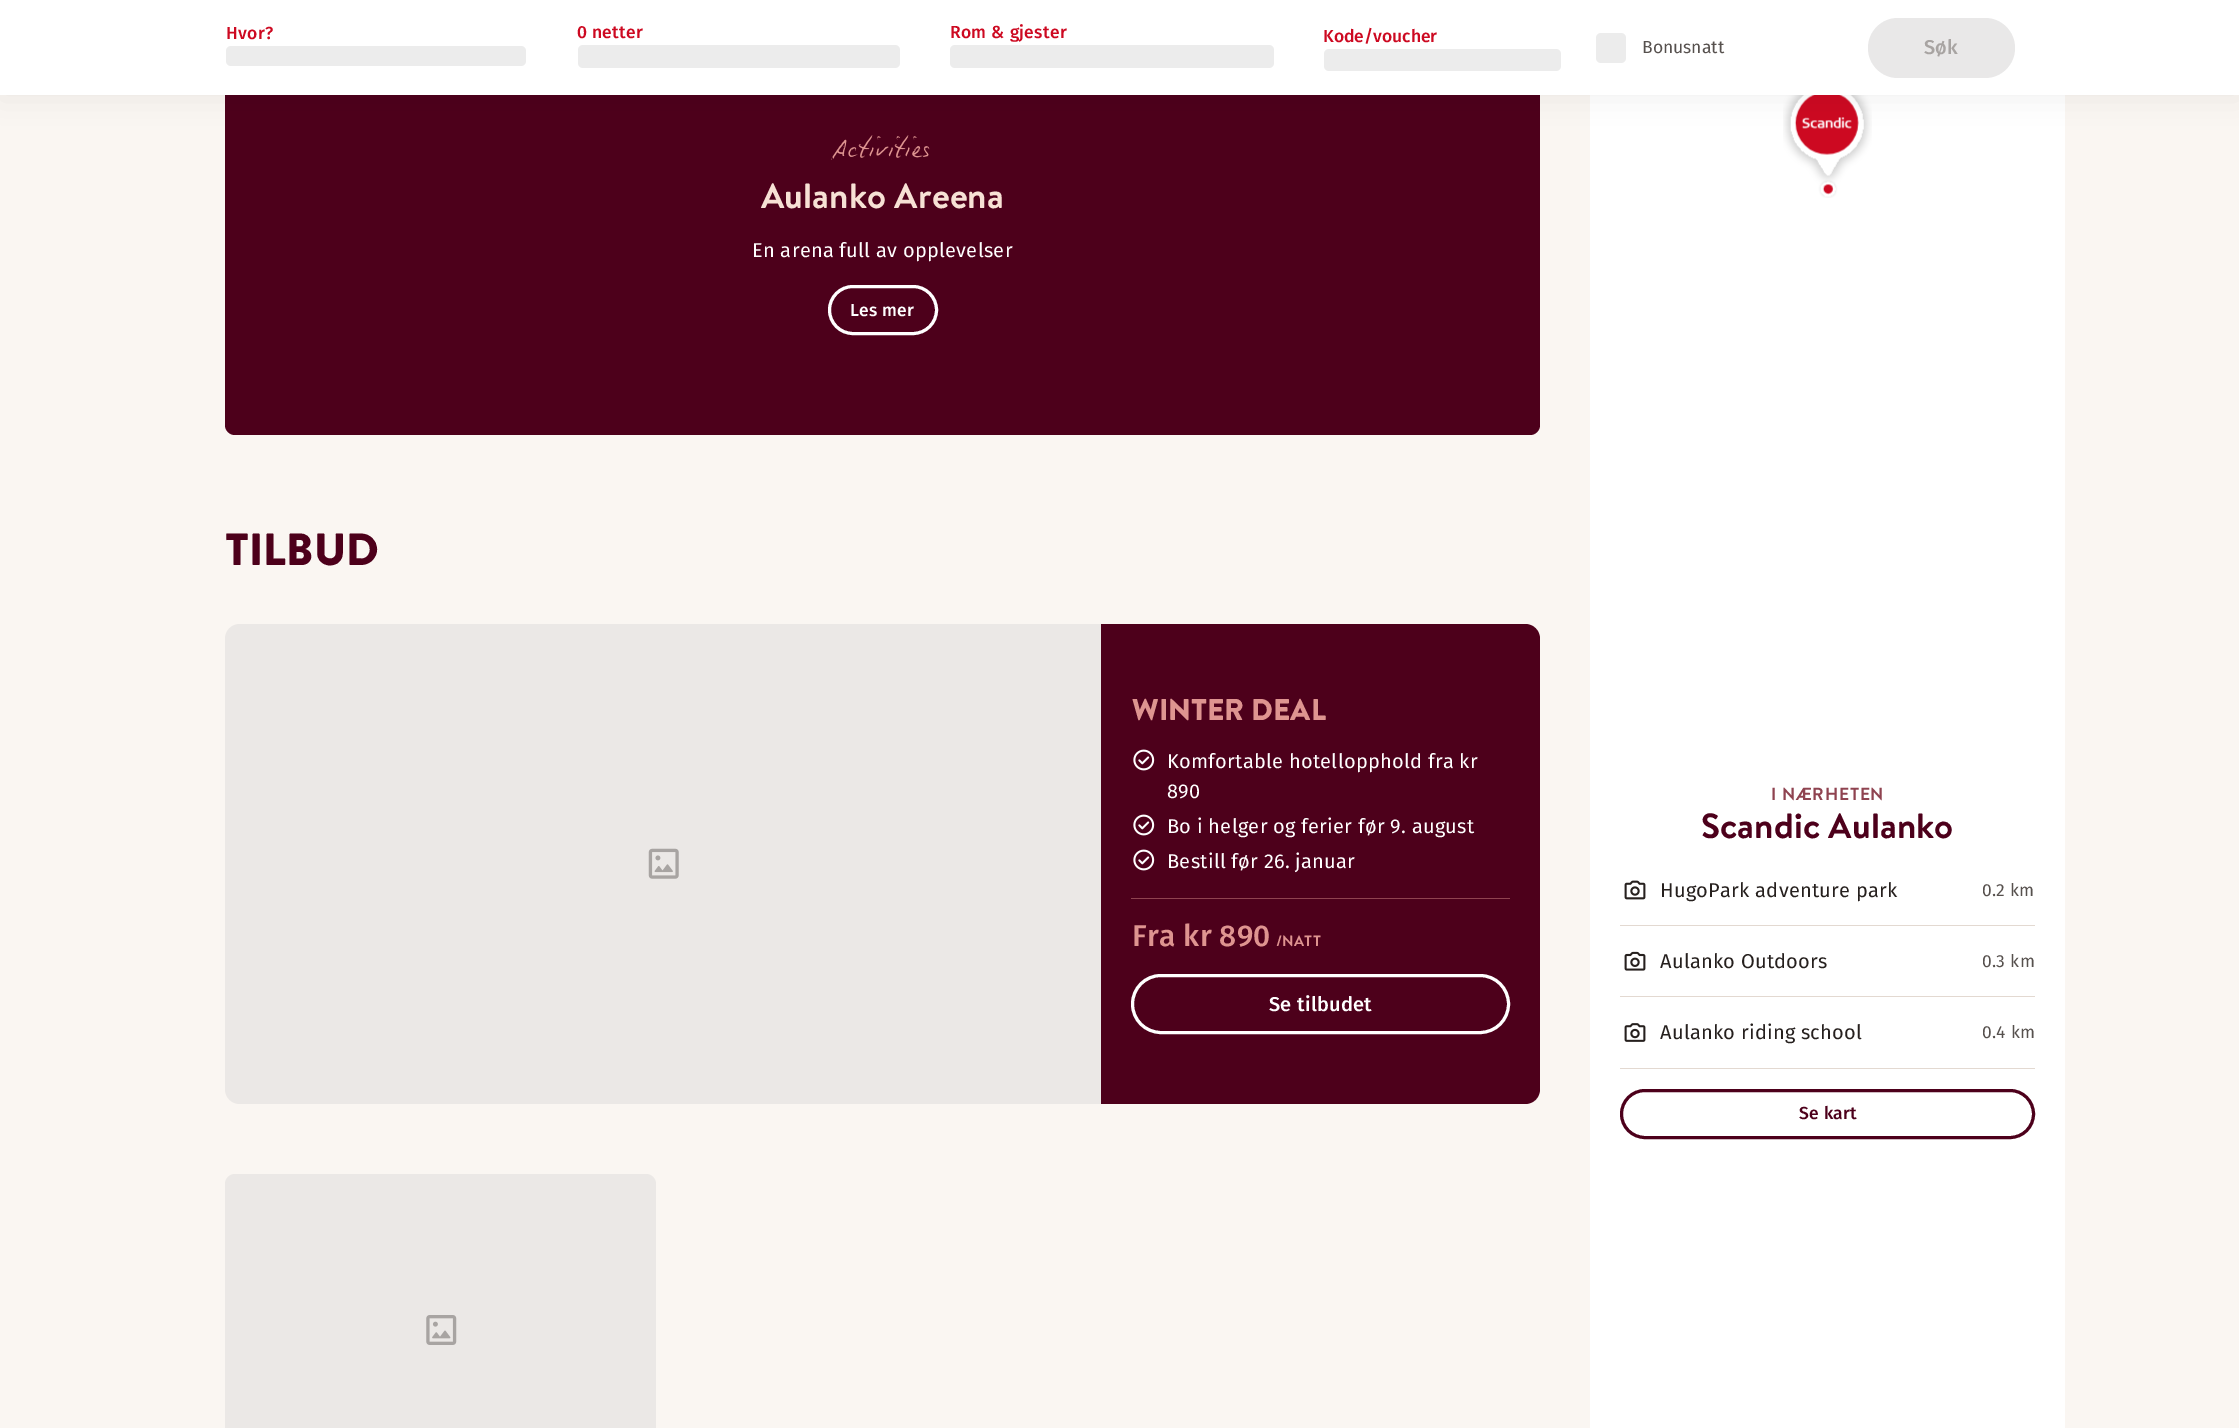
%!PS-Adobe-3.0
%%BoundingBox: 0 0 2239 1428
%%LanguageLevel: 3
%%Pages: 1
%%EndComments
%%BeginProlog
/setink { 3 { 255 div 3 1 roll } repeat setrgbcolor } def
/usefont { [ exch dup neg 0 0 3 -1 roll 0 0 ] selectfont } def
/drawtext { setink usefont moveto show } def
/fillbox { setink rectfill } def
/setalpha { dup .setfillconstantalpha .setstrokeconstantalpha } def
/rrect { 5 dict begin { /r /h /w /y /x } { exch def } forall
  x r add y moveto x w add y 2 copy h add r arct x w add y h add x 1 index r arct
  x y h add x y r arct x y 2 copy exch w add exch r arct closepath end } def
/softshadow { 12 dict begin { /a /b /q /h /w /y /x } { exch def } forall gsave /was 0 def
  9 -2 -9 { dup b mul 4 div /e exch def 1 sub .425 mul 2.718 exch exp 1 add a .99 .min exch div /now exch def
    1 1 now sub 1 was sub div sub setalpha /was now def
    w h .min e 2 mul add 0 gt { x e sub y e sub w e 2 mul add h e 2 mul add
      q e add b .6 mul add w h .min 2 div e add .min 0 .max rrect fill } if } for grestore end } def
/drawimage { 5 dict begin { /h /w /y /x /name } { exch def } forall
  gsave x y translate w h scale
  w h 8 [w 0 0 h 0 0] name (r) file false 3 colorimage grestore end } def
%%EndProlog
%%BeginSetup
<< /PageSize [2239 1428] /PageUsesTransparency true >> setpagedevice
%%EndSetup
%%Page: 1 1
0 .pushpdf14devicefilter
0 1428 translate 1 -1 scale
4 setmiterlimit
0 0 2239 1428 250 246 242 fillbox
77 0 27 setink
225 35 1315 400 10 rrect fill
(assets/img1.rgb) 831 135 99 25 drawimage
1590 95 475 1333 255 255 255 fillbox
(assets/img5.rgb) 1783 95 89 103 drawimage
0 0 0 setink
0 5 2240 95 0 15 0.05 softshadow
0 0 2239 95 255 255 255 fillbox
/FiraSans-Medium 17.5 usefont
205 9 33 setink
226 39 moveto 0.25 0 (Hvor?) ashow
236 236 236 setink
226 46 300 20 5 rrect fill
205 9 33 setink
577 38 moveto 0.25 0 (0 netter) ashow
236 236 236 setink
578 45 322 23 5 rrect fill
205 9 33 setink
950 38 moveto 0.25 0 (Rom & gjester) ashow
236 236 236 setink
950 45 324 23 5 rrect fill
(Kode/voucher) 1323 42 /FiraSans-Medium 17.5 205 9 33 drawtext
236 236 236 setink
1324 49 237 22 5 rrect fill
1596 33 30 30 5 rrect fill
(Bonusnatt) 1642 53 /FiraSans-Regular 17.5 87 81 78 drawtext
233 232 232 setink
1868 18 147 60 30 rrect fill
/FiraSans-Medium 20 usefont
168 164 162 setink
1924 54 moveto 0.25 0 (Søk) ashow
/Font-Bold 35 usefont
247 225 213 setink
761 208 moveto 0.1 0 (Aulanko Areena) ashow
/FiraSans-Regular 20 usefont
255 255 255 setink
752 257 moveto 0.25 0 (En arena full av opplevelser) ashow
3 setlinewidth
829.5 286.5 107 47 23.5 rrect stroke
/FiraSans-Medium 17.5 usefont
850 316 moveto 0.25 0 (Les mer) ashow
(TILBUD) 225 565 /Font-Black 45 77 0 27 drawtext
235 232 230 setink
240 624 moveto 1101 624 lineto 1101 1104 lineto 240 1104 lineto 231.5 1104 225 1097.5 225 1089 curveto 225 639 lineto 225 630.5 231.5 624 240 624 curveto closepath fill
(assets/img2.rgb) 648 848 31 31 drawimage
77 0 27 setink
1101 624 moveto 1525 624 lineto 1533.5 624 1540 630.5 1540 639 curveto 1540 1089 lineto 1540 1097.5 1533.5 1104 1525 1104 curveto 1101 1104 lineto closepath fill
(WINTER DEAL) 1132 720 /Font-Black 30 222 148 144 drawtext
(assets/img3.rgb) 1133 749 22 22 drawimage
/FiraSans-Regular 20 usefont
255 255 255 setink
1167 768 moveto 0.25 0 (Komfortable hotellopphold fra kr) ashow
1167 798 moveto 0.25 0 (890) ashow
(assets/img3.rgb) 1133 814 22 22 drawimage
1167 833 moveto 0.25 0 (Bo i helger og ferier før 9. august) ashow
(assets/img3.rgb) 1133 849 22 22 drawimage
1167 868 moveto 0.25 0 (Bestill før 26. januar) ashow
1131 898 379 1 143 67 80 fillbox
/FiraSans-Medium 30 usefont
222 148 144 setink
1132 946 moveto 0.25 0 (Fra kr 890) ashow
/Font-Bold 15 usefont
1276 946 moveto 0.25 0 (/NATT) ashow
255 255 255 setink
1132.5 975.5 376 57 28.5 rrect stroke
/FiraSans-Medium 20 usefont
1269 1011 moveto 0.25 0 (Se tilbudet) ashow
235 232 230 setink
225 1174 431 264 10 rrect fill
(assets/img4.rgb) 426 1315 31 30 drawimage
/Font-Bold 17.5 usefont
143 67 80 setink
1771 800 moveto 0.75 0 (I NÆRHETEN) ashow
/Font-Bold 35 usefont
77 0 27 setink
1701 838 moveto 0.1 0 (Scandic Aulanko) ashow
1620 925 415 1 227 217 209 fillbox
(assets/img6.rgb) 1624 880 22 20 drawimage
/FiraSans-Regular 20 usefont
38 32 30 setink
1660 897 moveto 0.25 0 (HugoPark adventure park) ashow
/FiraSans-Regular 17.5 usefont
87 81 78 setink
1982 896 moveto 0.25 0 (0.2 km) ashow
1620 996 415 1 227 217 209 fillbox
(assets/img7.rgb) 1624 951 22 20 drawimage
/FiraSans-Regular 20 usefont
38 32 30 setink
1660 968 moveto 0.25 0 (Aulanko Outdoors) ashow
/FiraSans-Regular 17.5 usefont
87 81 78 setink
1982 967 moveto 0.25 0 (0.3 km) ashow
1620 1068 415 1 227 217 209 fillbox
(assets/img8.rgb) 1624 1023 22 19 drawimage
/FiraSans-Regular 20 usefont
38 32 30 setink
1660 1039 moveto 0.25 0 (Aulanko riding school) ashow
/FiraSans-Regular 17.5 usefont
87 81 78 setink
1982 1038 moveto 0.25 0 (0.4 km) ashow
77 0 27 setink
1621.5 1090.5 412 47 23.5 rrect stroke
/FiraSans-Medium 17.5 usefont
1799 1119 moveto 0.25 0 (Se kart) ashow
.poppdf14devicefilter showpage
%%EOF
